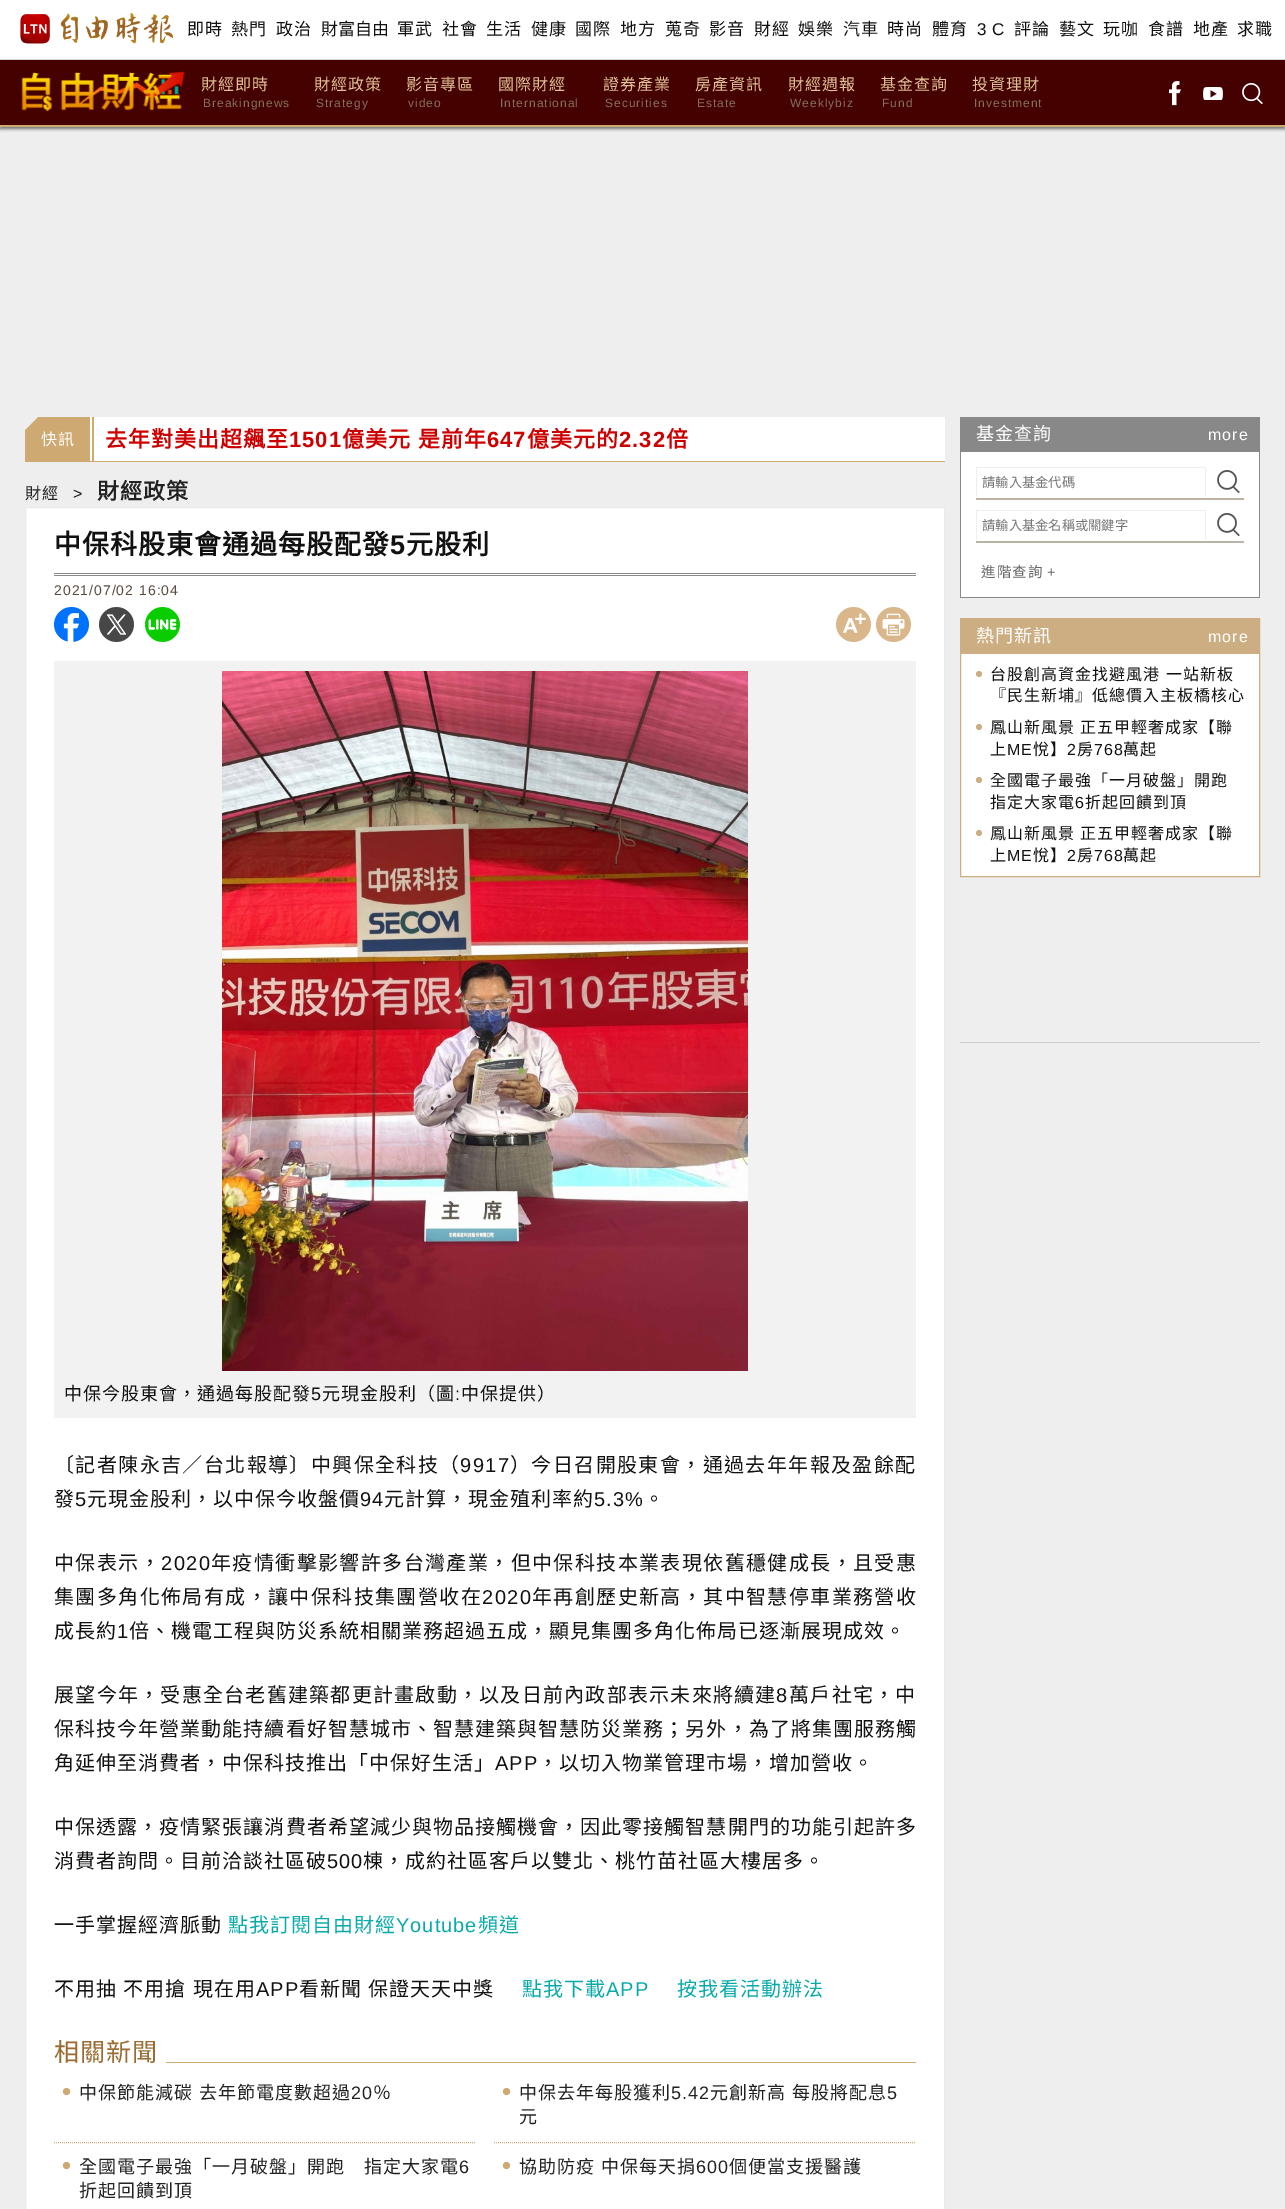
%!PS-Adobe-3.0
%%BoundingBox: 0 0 1285 2209
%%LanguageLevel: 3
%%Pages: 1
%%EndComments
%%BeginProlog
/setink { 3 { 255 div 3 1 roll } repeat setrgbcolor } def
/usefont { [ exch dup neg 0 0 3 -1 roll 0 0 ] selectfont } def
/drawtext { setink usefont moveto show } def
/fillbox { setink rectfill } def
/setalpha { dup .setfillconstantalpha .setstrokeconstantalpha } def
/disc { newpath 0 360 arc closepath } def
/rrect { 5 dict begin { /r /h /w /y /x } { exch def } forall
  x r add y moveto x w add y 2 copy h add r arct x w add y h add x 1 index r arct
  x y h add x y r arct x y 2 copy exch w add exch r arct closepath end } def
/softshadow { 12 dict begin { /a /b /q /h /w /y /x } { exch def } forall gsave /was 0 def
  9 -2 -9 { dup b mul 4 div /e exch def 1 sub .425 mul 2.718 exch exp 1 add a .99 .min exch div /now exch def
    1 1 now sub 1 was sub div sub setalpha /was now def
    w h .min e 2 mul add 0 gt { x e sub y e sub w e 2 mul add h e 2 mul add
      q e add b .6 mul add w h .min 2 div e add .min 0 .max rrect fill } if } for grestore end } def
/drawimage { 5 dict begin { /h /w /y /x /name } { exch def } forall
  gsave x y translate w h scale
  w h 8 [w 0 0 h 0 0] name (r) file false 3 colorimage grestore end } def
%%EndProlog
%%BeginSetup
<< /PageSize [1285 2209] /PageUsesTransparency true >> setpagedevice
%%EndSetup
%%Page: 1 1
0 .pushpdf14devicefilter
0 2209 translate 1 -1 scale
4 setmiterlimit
0 0 1285 2209 238 238 238 fillbox
0 0 1285 59 255 255 255 fillbox
0 59 1285 1 220 220 220 fillbox
(assets/img1.rgb) 20 13 154 31 drawimage
/NotoSansCJKTC-Regular 17 usefont
17 17 17 setink
187 35 moveto 0.5 0 (即時) ashow
231 35 moveto 0.5 0 (熱門) ashow
276 35 moveto 0.5 0 (政治) ashow
(財富自由) 321 35 /NotoSansCJKTC-Regular 17 17 17 17 drawtext
397 35 moveto 0.5 0 (軍武) ashow
442 35 moveto 0.5 0 (社會) ashow
486 35 moveto 0.5 0 (生活) ashow
531 35 moveto 0.5 0 (健康) ashow
575 35 moveto 0.5 0 (國際) ashow
620 35 moveto 0.5 0 (地方) ashow
665 35 moveto 0.5 0 (蒐奇) ashow
709 35 moveto 0.5 0 (影音) ashow
754 35 moveto 0.5 0 (財經) ashow
798 35 moveto 0.5 0 (娛樂) ashow
843 35 moveto 0.5 0 (汽車) ashow
887 35 moveto 0.5 0 (時尚) ashow
932 35 moveto 0.5 0 (體育) ashow
/LiberationSans-Regular 17 usefont
977 35 moveto 0.5 0 (3 C) ashow
/NotoSansCJKTC-Regular 17 usefont
1014 35 moveto 0.5 0 (評論) ashow
1059 35 moveto 0.5 0 (藝文) ashow
1103 35 moveto 0.5 0 (玩咖) ashow
1148 35 moveto 0.5 0 (食譜) ashow
1193 35 moveto 0.5 0 (地產) ashow
1237 35 moveto 0.5 0 (求職) ashow
0 0 0 setink
0 62 1285 67 0 1.5 0.5 softshadow
0 60 1285 65 69 0 0 fillbox
0 125 1285 2 207 169 114 fillbox
(assets/img2.rgb) 21 71 164 41 drawimage
/NotoSansCJKTC-Regular 16 usefont
222 193 149 setink
201 90 moveto 1 0 (財經即時) ashow
/LiberationSans-Regular 12 usefont
132 114 87 setink
203 107 moveto 1 0 (Breakingnews) ashow
/NotoSansCJKTC-Regular 16 usefont
222 193 149 setink
314 90 moveto 1 0 (財經政策) ashow
/LiberationSans-Regular 12 usefont
132 114 87 setink
316 107 moveto 1 0 (Strategy) ashow
/NotoSansCJKTC-Regular 16 usefont
222 193 149 setink
406 90 moveto 1 0 (影音專區) ashow
/LiberationSans-Regular 12 usefont
132 114 87 setink
408 107 moveto 1 0 (video) ashow
/NotoSansCJKTC-Regular 16 usefont
222 193 149 setink
498 90 moveto 1 0 (國際財經) ashow
/LiberationSans-Regular 12 usefont
132 114 87 setink
500 107 moveto 1 0 (International) ashow
/NotoSansCJKTC-Regular 16 usefont
222 193 149 setink
603 90 moveto 1 0 (證券產業) ashow
/LiberationSans-Regular 12 usefont
132 114 87 setink
605 107 moveto 1 0 (Securities) ashow
/NotoSansCJKTC-Regular 16 usefont
222 193 149 setink
695 90 moveto 1 0 (房產資訊) ashow
/LiberationSans-Regular 12 usefont
132 114 87 setink
697 107 moveto 1 0 (Estate) ashow
/NotoSansCJKTC-Regular 16 usefont
222 193 149 setink
788 90 moveto 1 0 (財經週報) ashow
/LiberationSans-Regular 12 usefont
132 114 87 setink
790 107 moveto 1 0 (Weeklybiz) ashow
/NotoSansCJKTC-Regular 16 usefont
222 193 149 setink
880 90 moveto 1 0 (基金查詢) ashow
/LiberationSans-Regular 12 usefont
132 114 87 setink
882 107 moveto 1 0 (Fund) ashow
/NotoSansCJKTC-Regular 16 usefont
222 193 149 setink
972 90 moveto 1 0 (投資理財) ashow
/LiberationSans-Regular 12 usefont
132 114 87 setink
974 107 moveto 1 0 (Investment) ashow
(assets/img3.rgb) 1169 81 12 25 drawimage
(assets/img4.rgb) 1203 87 20 13 drawimage
(assets/img5.rgb) 1242 83 21 21 drawimage
90 417 855 44 255 255 255 fillbox
25 461 920 1 207 169 114 fillbox
25 417 65 44 207 169 114 fillbox
238 238 238 setink
25 417 moveto 38 417 lineto 25 430 lineto closepath fill
92 417 2 44 207 169 114 fillbox
/NotoSansCJKTC-Bold 22 usefont
204 0 0 setink
105 447 moveto 1 0 (去年對美出超飆至) ashow
/LiberationSans-Bold 22 usefont
289 447 moveto 1 0 (1501) ashow
/NotoSansCJKTC-Bold 22 usefont
342 447 moveto 1 0 (億美元) ashow
418 447 moveto 1 0 (是前年) ashow
/LiberationSans-Bold 22 usefont
487 447 moveto 1 0 (647) ashow
/NotoSansCJKTC-Bold 22 usefont
527 447 moveto 1 0 (億美元的) ashow
/LiberationSans-Bold 22 usefont
619 447 moveto 1 0 (2.32) ashow
/NotoSansCJKTC-Bold 22 usefont
666 447 moveto 1 0 (倍) ashow
/NotoSansCJKTC-Regular 16 usefont
255 255 255 setink
41 445 moveto 1 0 (快訊) ashow
34 34 34 setink
25 499 moveto 1 0 (財經) ashow
/LiberationSans-Regular 16 usefont
17 17 17 setink
73 499 moveto 1 0 (>) ashow
/NotoSansCJKTC-Bold 22 usefont
34 34 34 setink
97 499 moveto 1 0 (財經政策) ashow
255 255 255 setink
25.5 507.5 moveto 944.5 507.5 lineto 944.5 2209.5 lineto 25.5 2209.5 lineto closepath gsave fill grestore
234 234 234 setink
stroke
54 573 862 1 140 139 139 fillbox
54 575 862 1 140 139 139 fillbox
/NotoSansCJKTC-Bold 27 usefont
17 17 17 setink
54 554 moveto 1 0 (中保科股東會通過每股配發) ashow
/LiberationSans-Bold 27 usefont
390 554 moveto 1 0 (5) ashow
/NotoSansCJKTC-Bold 27 usefont
406 554 moveto 1 0 (元股利) ashow
/LiberationSans-Regular 14 usefont
89 73 63 setink
54 595 moveto 1 0 (2021/07/02 16:04) ashow
(assets/img6.rgb) 54 607 35 35 drawimage
(assets/img7.rgb) 99 607 35 35 drawimage
(assets/img8.rgb) 145 607 35 35 drawimage
(assets/img9.rgb) 836 607 35 35 drawimage
(assets/img10.rgb) 876 607 35 35 drawimage
54 661 862 757 242 242 242 fillbox
(assets/img11.rgb) 222 671 526 700 drawimage
/NotoSansCJKTC-Regular 18 usefont
17 17 17 setink
64 1400 moveto 1 0 (中保今股東會，通過每股配發) ashow
/LiberationSans-Regular 18 usefont
311 1400 moveto 1 0 (5) ashow
/NotoSansCJKTC-Regular 18 usefont
322 1400 moveto 1 0 (元現金股利（圖) ashow
/LiberationSans-Regular 18 usefont
455 1400 moveto 1 0 (:) ashow
/NotoSansCJKTC-Regular 18 usefont
461 1400 moveto 1 0 (中保提供）) ashow
/NotoSansCJKTC-Regular 20 usefont
54 1472 moveto 1.4 0 (〔記者陳永吉／台北報導〕中興保全科技（) ashow
/LiberationSans-Regular 20 usefont
460 1472 moveto 1.4 0 (9917) ashow
/NotoSansCJKTC-Regular 20 usefont
510 1472 moveto 1.4 0 (）今日召開股東會，通過去年年報及盈餘配) ashow
54 1506 moveto 1 0 (發) ashow
/LiberationSans-Regular 20 usefont
75 1506 moveto 1 0 (5) ashow
/NotoSansCJKTC-Regular 20 usefont
87 1506 moveto 1 0 (元現金股利，以中保今收盤價) ashow
/LiberationSans-Regular 20 usefont
360 1506 moveto 1 0 (94) ashow
/NotoSansCJKTC-Regular 20 usefont
384 1506 moveto 1 0 (元計算，現金殖利率約) ashow
/LiberationSans-Regular 20 usefont
594 1506 moveto 1 0 (5.3%) ashow
/NotoSansCJKTC-Regular 20 usefont
644 1506 moveto 1 0 (。) ashow
54 1570 moveto 1.4 0 (中保表示，) ashow
/LiberationSans-Regular 20 usefont
161 1570 moveto 1.4 0 (2020) ashow
/NotoSansCJKTC-Regular 20 usefont
211 1570 moveto 1.4 0 (年疫情衝擊影響許多台灣產業，但中保科技本業表現依舊穩健成長，且受惠) ashow
54 1604 moveto 1.4 0 (集團多角化佈局有成，讓中保科技集團營收在) ashow
/LiberationSans-Regular 20 usefont
482 1604 moveto 1.4 0 (2020) ashow
/NotoSansCJKTC-Regular 20 usefont
532 1604 moveto 1.4 0 (年再創歷史新高，其中智慧停車業務營收) ashow
54 1638 moveto 1 0 (成長約) ashow
/LiberationSans-Regular 20 usefont
117 1638 moveto 1 0 (1) ashow
/NotoSansCJKTC-Regular 20 usefont
129 1638 moveto 1 0 (倍、機電工程與防災系統相關業務超過五成，顯見集團多角化佈局已逐漸展現成效。) ashow
54 1702 moveto 1.25 0 (展望今年，受惠全台老舊建築都更計畫啟動，以及日前內政部表示未來將續建) ashow
/LiberationSans-Regular 20 usefont
776 1702 moveto 1.25 0 (8) ashow
/NotoSansCJKTC-Regular 20 usefont
789 1702 moveto 1.25 0 (萬戶社宅，中) ashow
54 1736 moveto 1.05 0 (保科技今年營業動能持續看好智慧城市、智慧建築與智慧防災業務；另外，為了將集團服務觸) ashow
54 1770 moveto 1 0 (角延伸至消費者，中保科技推出「中保好生活」) ashow
/LiberationSans-Regular 20 usefont
495 1770 moveto 1 0 (APP) ashow
/NotoSansCJKTC-Regular 20 usefont
538 1770 moveto 1 0 (，以切入物業管理市場，增加營收。) ashow
54 1834 moveto 1.05 0 (中保透露，疫情緊張讓消費者希望減少與物品接觸機會，因此零接觸智慧開門的功能引起許多) ashow
54 1868 moveto 1 0 (消費者詢問。目前洽談社區破) ashow
/LiberationSans-Regular 20 usefont
327 1868 moveto 1 0 (500) ashow
/NotoSansCJKTC-Regular 20 usefont
363 1868 moveto 1 0 (棟，成約社區客戶以雙北、桃竹苗社區大樓居多。) ashow
54 1932 moveto 1 0 (一手掌握經濟脈動) ashow
9 170 170 setink
228 1932 moveto 1 0 (點我訂閱自由財經) ashow
/LiberationSans-Regular 20 usefont
396 1932 moveto 1 0 (Youtube) ashow
/NotoSansCJKTC-Regular 20 usefont
478 1932 moveto 1 0 (頻道) ashow
17 17 17 setink
54 1996 moveto 1 0 32 1 0 (不用抽 不用搶 現在用) awidthshow
/LiberationSans-Regular 20 usefont
256 1996 moveto 1 0 (APP) ashow
/NotoSansCJKTC-Regular 20 usefont
299 1996 moveto 1 0 32 1 0 (看新聞 保證天天中獎) awidthshow
9 170 170 setink
522 1996 moveto 1 0 (點我下載) ashow
/LiberationSans-Regular 20 usefont
606 1996 moveto 1 0 (APP) ashow
/NotoSansCJKTC-Regular 20 usefont
677 1996 moveto 1 0 (按我看活動辦法) ashow
/NotoSansCJKTC-Regular 25 usefont
153 108 51 setink
54 2061 moveto 1 0 (相關新聞) ashow
166 2062 750 1 207 169 114 fillbox
[1 1] 0 setdash
54 2142.5 moveto 476 2142.5 lineto stroke
66.5 2091.5 3.5 disc fill
/NotoSansCJKTC-Regular 18 usefont
34 34 34 setink
79 2099 moveto 1 0 32 1 0 (中保節能減碳 去年節電度數超過) awidthshow
/LiberationSans-Regular 18 usefont
351 2099 moveto 1 0 (20) ashow
/NotoSansCJKTC-Regular 18 usefont
373 2099 moveto 1 0 (％) ashow
207 169 114 setink
494 2142.5 moveto 916 2142.5 lineto stroke
506.5 2091.5 3.5 disc fill
34 34 34 setink
519 2099 moveto 1 0 (中保去年每股獲利) ashow
/LiberationSans-Regular 18 usefont
671 2099 moveto 1 0 (5.42) ashow
/NotoSansCJKTC-Regular 18 usefont
710 2099 moveto 1 0 32 1 0 (元創新高 每股將配息) awidthshow
/LiberationSans-Regular 18 usefont
887 2099 moveto 1 0 (5) ashow
/NotoSansCJKTC-Regular 18 usefont
519 2123 moveto 1 0 (元) ashow
207 169 114 setink
66.5 2165.5 3.5 disc fill
34 34 34 setink
79 2173 moveto 1 0 (全國電子最強「一月破盤」開跑　指定大家電) ashow
/LiberationSans-Regular 18 usefont
459 2173 moveto 1 0 (6) ashow
/NotoSansCJKTC-Regular 18 usefont
79 2197 moveto 1 0 (折起回饋到頂) ashow
207 169 114 setink
506.5 2165.5 3.5 disc fill
34 34 34 setink
519 2173 moveto 1 0 32 1 0 (協助防疫 中保每天捐) awidthshow
/LiberationSans-Regular 18 usefont
696 2173 moveto 1 0 (600) ashow
/NotoSansCJKTC-Regular 18 usefont
729 2173 moveto 1 0 (個便當支援醫護) ashow
961 452 298 145 255 255 255 fillbox
1259 417 1 181 136 136 136 fillbox
960 597 300 1 136 136 136 fillbox
960 417 1 181 136 136 136 fillbox
961 417 298 35 136 136 136 fillbox
255 255 255 setink
976 440 moveto 1 0 (基金查詢) ashow
/LiberationSans-Regular 16 usefont
1208 440 moveto 1 0 (more) ashow
976 498 268 2 189 178 166 fillbox
976 467 230 1 238 238 238 fillbox
1205 467 1 30 238 238 238 fillbox
976 467 1 30 238 238 238 fillbox
(請輸入基金代碼) 982 487 /NotoSansCJKTC-Regular 13.25 117 117 117 drawtext
(assets/img12.rgb) 1217 470 23 24 drawimage
976 541 268 2 189 178 166 fillbox
976 510 230 1 238 238 238 fillbox
1205 510 1 30 238 238 238 fillbox
976 510 1 30 238 238 238 fillbox
(請輸入基金名稱或關鍵字) 982 530 /NotoSansCJKTC-Regular 13.25 117 117 117 drawtext
(assets/img12.rgb) 1217 513 23 24 drawimage
/NotoSansCJKTC-Regular 14.5 usefont
102 102 102 setink
981 577 moveto 1 0 (進階查詢) ashow
/LiberationSans-Regular 14.5 usefont
1047 577 moveto 1 0 (+) ashow
961 654 298 222 255 255 255 fillbox
205 174 130 setink
[] 0 setdash
960.5 618.5 299 258 rectstroke
961 619 298 35 205 174 130 fillbox
/NotoSansCJKTC-Regular 18 usefont
255 255 255 setink
976 642 moveto 1 0 (熱門新訊) ashow
/LiberationSans-Regular 16 usefont
1208 642 moveto 1 0 (more) ashow
205 174 130 setink
979 674 3 disc fill
/NotoSansCJKTC-Regular 16 usefont
17 17 17 setink
990 680 moveto 1 0 32 1 0 (台股創高資金找避風港 一站新板) awidthshow
990 701 moveto 1 0 (『民生新埔』低總價入主板橋核心) ashow
205 174 130 setink
979 727 3 disc fill
17 17 17 setink
990 733 moveto 1 0 (鳳山新風景) ashow
1080 733 moveto 1 0 (正五甲輕奢成家【聯) ashow
990 755 moveto 1 0 (上) ashow
/LiberationSans-Regular 16 usefont
1007 755 moveto 1 0 (ME) ashow
/NotoSansCJKTC-Regular 16 usefont
1033 755 moveto 1 0 (悅】) ashow
/LiberationSans-Regular 16 usefont
1067 755 moveto 1 0 (2) ashow
/NotoSansCJKTC-Regular 16 usefont
1077 755 moveto 1 0 (房) ashow
/LiberationSans-Regular 16 usefont
1094 755 moveto 1 0 (768) ashow
/NotoSansCJKTC-Regular 16 usefont
1123 755 moveto 1 0 (萬起) ashow
205 174 130 setink
979 780 3 disc fill
17 17 17 setink
990 786 moveto 1 0 (全國電子最強「一月破盤」開跑) ashow
990 808 moveto 1 0 (指定大家電) ashow
/LiberationSans-Regular 16 usefont
1075 808 moveto 1 0 (6) ashow
/NotoSansCJKTC-Regular 16 usefont
1085 808 moveto 1 0 (折起回饋到頂) ashow
205 174 130 setink
979 833 3 disc fill
17 17 17 setink
990 839 moveto 1 0 (鳳山新風景) ashow
1080 839 moveto 1 0 (正五甲輕奢成家【聯) ashow
990 861 moveto 1 0 (上) ashow
/LiberationSans-Regular 16 usefont
1007 861 moveto 1 0 (ME) ashow
/NotoSansCJKTC-Regular 16 usefont
1033 861 moveto 1 0 (悅】) ashow
/LiberationSans-Regular 16 usefont
1067 861 moveto 1 0 (2) ashow
/NotoSansCJKTC-Regular 16 usefont
1077 861 moveto 1 0 (房) ashow
/LiberationSans-Regular 16 usefont
1094 861 moveto 1 0 (768) ashow
/NotoSansCJKTC-Regular 16 usefont
1123 861 moveto 1 0 (萬起) ashow
960 1042 300 1 204 204 204 fillbox
.poppdf14devicefilter showpage
%%EOF
